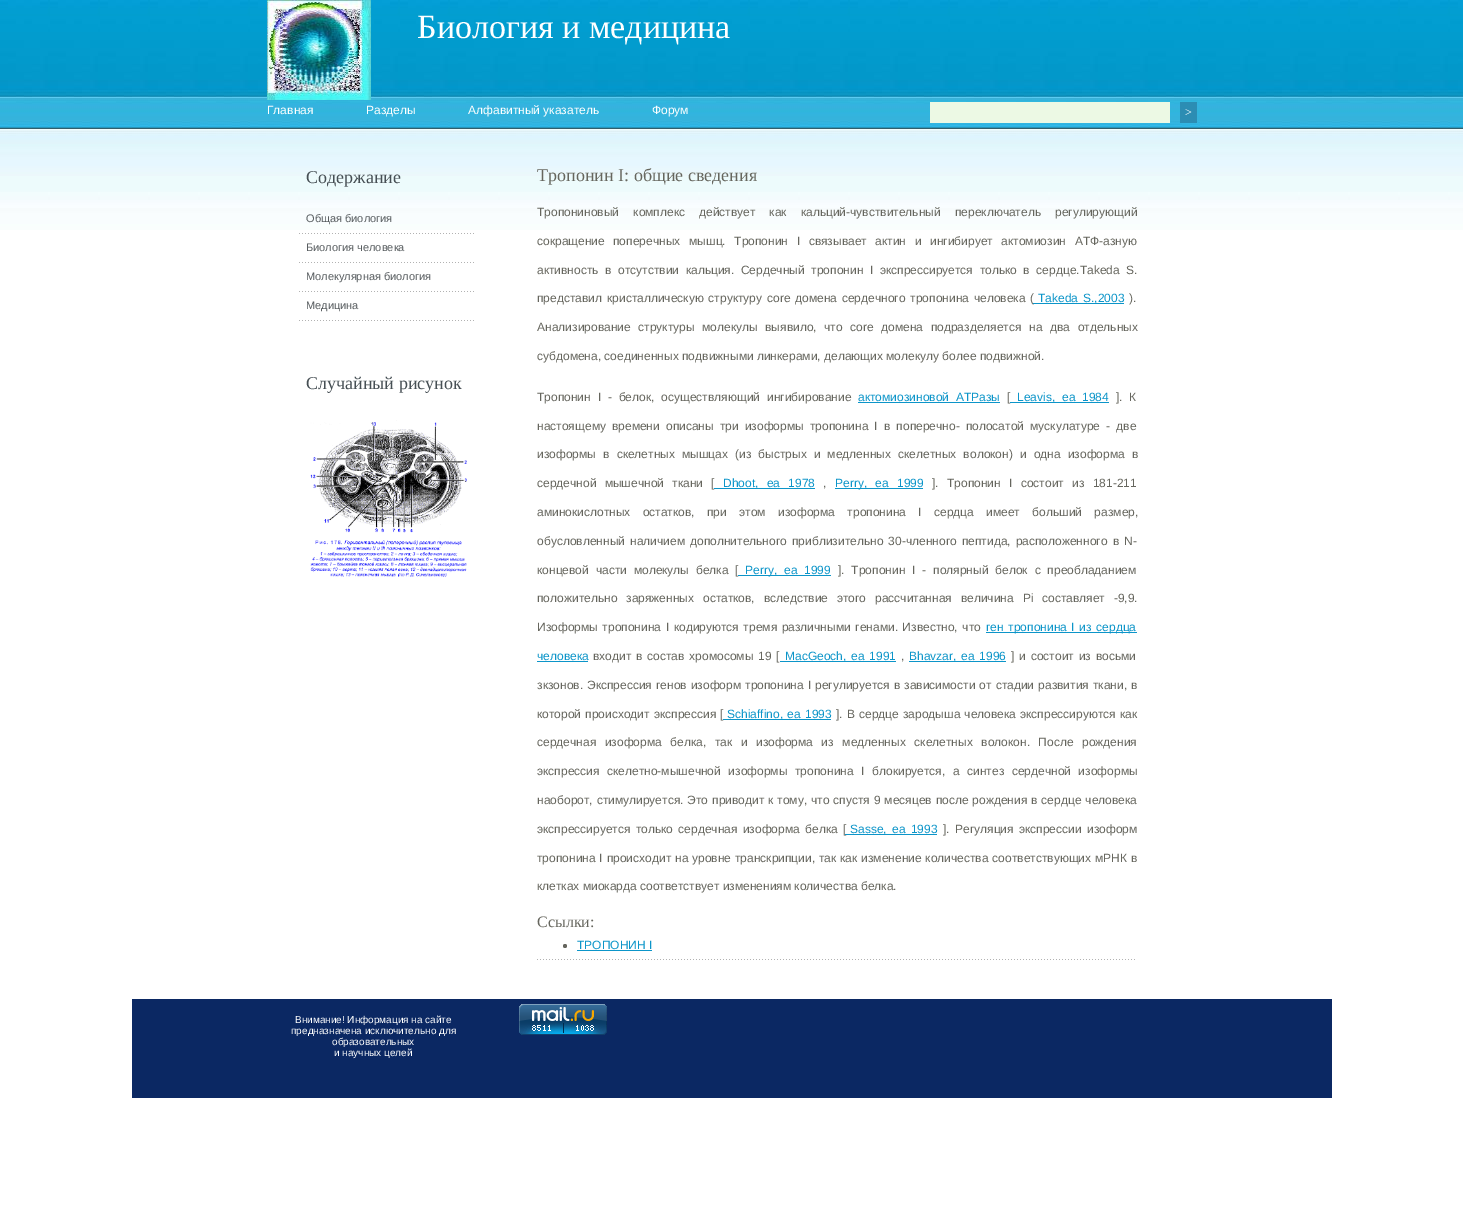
%!PS-Adobe-3.0
%%BoundingBox: 0 0 1463 1217
%%LanguageLevel: 3
%%Pages: 1
%%EndComments
%%BeginProlog
/setink { 3 { 255 div 3 1 roll } repeat setrgbcolor } def
/usefont { [ exch dup neg 0 0 3 -1 roll 0 0 ] selectfont } def
/drawtext { setink usefont moveto show } def
/fillbox { setink rectfill } def
/disc { newpath 0 360 arc closepath } def
/drawimage { 5 dict begin { /h /w /y /x /name } { exch def } forall
  gsave x y translate w h scale
  w h 8 [w 0 0 h 0 0] name (r) file false 3 colorimage grestore end } def
%%EndProlog
%%BeginSetup
<< /PageSize [1463 1217] >> setpagedevice
%%EndSetup
%%Page: 1 1
0 1217 translate 1 -1 scale
4 setmiterlimit
0 0 1463 1217 255 255 255 fillbox
(assets/img1.rgb) 0 0 1463 230 drawimage
(assets/img2.rgb) 267 0 104 100 drawimage
(Биология и медицина) 417 38 /LiberationSerif-Regular 34 255 255 255 drawtext
(Главная) 267 114 /LiberationSans-Regular 12 255 255 255 drawtext
(Разделы) 366 114 /LiberationSans-Regular 12 255 255 255 drawtext
(Алфавитный указатель) 468 114 /LiberationSans-Regular 12 255 255 255 drawtext
(Форум) 652 114 /LiberationSans-Regular 12 255 255 255 drawtext
930 102 240 21 236 249 228 fillbox
1180 102 17 21 44 141 179 fillbox
(>) 1185 116 /LiberationSerif-Regular 12 255 255 255 drawtext
(Содержание) 306 183 /LiberationSerif-Regular 18 70 79 84 drawtext
(assets/img3.rgb) 299 233 175 1 drawimage
(Общая биология) 306 222 /LiberationSans-Regular 11 88 93 96 drawtext
(assets/img3.rgb) 299 262 175 1 drawimage
(Биология человека) 306 251 /LiberationSans-Regular 11 88 93 96 drawtext
(assets/img3.rgb) 299 291 175 1 drawimage
(Молекулярная биология) 306 280 /LiberationSans-Regular 11 88 93 96 drawtext
(assets/img3.rgb) 299 320 175 1 drawimage
(Медицина) 306 309 /LiberationSans-Regular 11 88 93 96 drawtext
(Случайный рисунок) 306 389 /LiberationSerif-Regular 18 70 79 84 drawtext
(assets/img4.rgb) 310 420 157 160 drawimage
(assets/img5.rgb) 537 959 598 1 drawimage
(Тропонин I: общие сведения) 537 181 /LiberationSerif-Regular 18 102 102 94 drawtext
/LiberationSans-Regular 12 usefont
537 216 moveto 10.75 0 32 (Тропониновый комплекс действует как кальций-чувствительный переключатель регулирующий) widthshow
(сокращение) 537 245 /LiberationSans-Regular 12 102 102 94 drawtext
(поперечных) 613 245 /LiberationSans-Regular 12 102 102 94 drawtext
689 245 moveto 5.25 0 32 (мышц. Тропонин I связывает актин и ингибирует актомиозин АТФ-азную) widthshow
537 274 moveto 3.25 0 32 (активность в отсутствии кальция. Сердечный тропонин I экспрессируется только в сердце.Takeda S.) widthshow
537 302 moveto 1.5 0 32 (представил кристаллическую структуру core домена сердечного тропонина человека \() widthshow
1033 303 91 1 12 149 201 fillbox
1038 302 moveto 1.5 0 32 (Takeda S.,2003) widthshow
(\).) 1129 302 /LiberationSans-Regular 12 102 102 94 drawtext
537 331 moveto 4.25 0 32 (Анализирование структуры молекулы выявило, что core домена подразделяется на два отдельных) widthshow
(субдомена, соединенных подвижными линкерами, делающих молекулу более подвижной.) 537 360 /LiberationSans-Regular 12 102 102 94 drawtext
537 401 moveto 3.5 0 32 (Тропонин I - белок, осуществляющий ингибирование) widthshow
12 149 201 setink
858 401 moveto 3.5 0 32 (актомиозиновой АТРазы) widthshow
858 402 142 1 12 149 201 fillbox
([) 1007 401 /LiberationSans-Regular 12 102 102 94 drawtext
1010 402 99 1 12 149 201 fillbox
1017 401 moveto 3.5 0 32 (Leavis, ea 1984) widthshow
102 102 94 setink
1116 401 moveto 3.5 0 32 (]. К) widthshow
537 430 moveto 2.75 0 32 (настоящему времени описаны три изоформы тропонина I в поперечно- полосатой мускулатуре - две) widthshow
537 458 moveto 3.75 0 32 (изоформы в скелетных мышцах \(из быстрых и медленных скелетных волокон\) и одна изоформа в) widthshow
537 487 moveto 5 0 32 (сердечной мышечной ткани [) widthshow
714 488 101 1 12 149 201 fillbox
723 487 moveto 5 0 32 (Dhoot, ea 1978) widthshow
(,) 823 487 /LiberationSans-Regular 12 102 102 94 drawtext
835 488 88 1 12 149 201 fillbox
835 487 moveto 5 0 32 (Perry, ea 1999) widthshow
102 102 94 setink
932 487 moveto 5 0 32 (]. Тропонин I состоит из 181-211) widthshow
537 516 moveto 9 0 32 (аминокислотных остатков, при этом изоформа тропонина I сердца имеет больший размер,) widthshow
537 545 moveto 1.75 0 32 (обусловленный наличием дополнительного приблизительно 30-членного пептида, расположенного в N-) widthshow
537 574 moveto 3.5 0 32 (концевой части молекулы белка [) widthshow
738 575 93 1 12 149 201 fillbox
745 574 moveto 3.5 0 32 (Perry, ea 1999) widthshow
102 102 94 setink
838 574 moveto 3.5 0 32 (]. Тропонин I - полярный белок с преобладанием) widthshow
537 602 moveto 5.5 0 32 (положительно заряженных остатков, вследствие этого рассчитанная величина Pi составляет -9,9.) widthshow
537 631 moveto 1.25 0 32 (Изоформы тропонина I кодируются тремя различными генами. Известно, что) widthshow
986 632 151 1 12 149 201 fillbox
986 631 moveto 1.25 0 32 (ген тропонина I из сердца) widthshow
(человека) 537 660 /LiberationSans-Regular 12 12 149 201 drawtext
537 661 51 1 12 149 201 fillbox
102 102 94 setink
593 660 moveto 1.5 0 32 (входит в состав хромосомы 19 [) widthshow
780 661 116 1 12 149 201 fillbox
785 660 moveto 1.5 0 32 (MacGeoch, ea 1991) widthshow
(,) 901 660 /LiberationSans-Regular 12 102 102 94 drawtext
909 661 97 1 12 149 201 fillbox
909 660 moveto 1.5 0 32 (Bhavzar, ea 1996) widthshow
102 102 94 setink
1011 660 moveto 1.5 0 32 (] и состоит из восьми) widthshow
537 689 moveto 0.7 0 32 (зкзонов. Экспрессия генов изоформ тропонина I регулируется в зависимости от стадии развития ткани, в) widthshow
537 718 moveto 0.75 0 32 (которой происходит экспрессия [) widthshow
723 719 108 1 12 149 201 fillbox
727 718 moveto 1 0 32 (Schiaffino, ea 1993) widthshow
102 102 94 setink
836 718 moveto 0.75 0 32 (]. В сердце зародыша человека экспрессируются как) widthshow
537 746 moveto 5.25 0 32 (сердечная изоформа белка, так и изоформа из медленных скелетных волокон. После рождения) widthshow
537 775 moveto 4.25 0 32 (экспрессия скелетно-мышечной изоформы тропонина I блокируется, а синтез сердечной изоформы) widthshow
537 804 moveto 0.6 0 32 (наоборот, стимулируется. Это приводит к тому, что спустя 9 месяцев после рождения в сердце человека) widthshow
537 833 moveto 2 0 32 (экспрессируется только сердечная изоформа белка [) widthshow
845 834 92 1 12 149 201 fillbox
850 833 moveto 2 0 32 (Sasse, ea 1993) widthshow
102 102 94 setink
943 833 moveto 2 0 32 (]. Регуляция экспрессии изоформ) widthshow
537 862 moveto 0.5 0 32 (тропонина I происходит на уровне транскрипции, так как изменение количества соответствующих мРНК в) widthshow
(клетках миокарда соответствует изменениям количества белка.) 537 890 /LiberationSans-Regular 12 102 102 94 drawtext
(Ссылки:) 537 927 /LiberationSerif-Regular 16 102 102 94 drawtext
565 946 2 disc fill
(ТРОПОНИН I) 577 949 /LiberationSans-Regular 12 12 149 201 drawtext
577 950 75 1 12 149 201 fillbox
132 999 1200 99 11 40 99 fillbox
(Внимание! Информация на сайте) 295 1023 /LiberationSans-Regular 10 255 255 255 drawtext
(предназначена исключительно для) 291 1034 /LiberationSans-Regular 10 255 255 255 drawtext
(образовательных) 332 1045 /LiberationSans-Regular 10 255 255 255 drawtext
(и научных целей) 334 1056 /LiberationSans-Regular 10 255 255 255 drawtext
(assets/img6.rgb) 519 1004 88 31 drawimage
showpage
%%EOF
